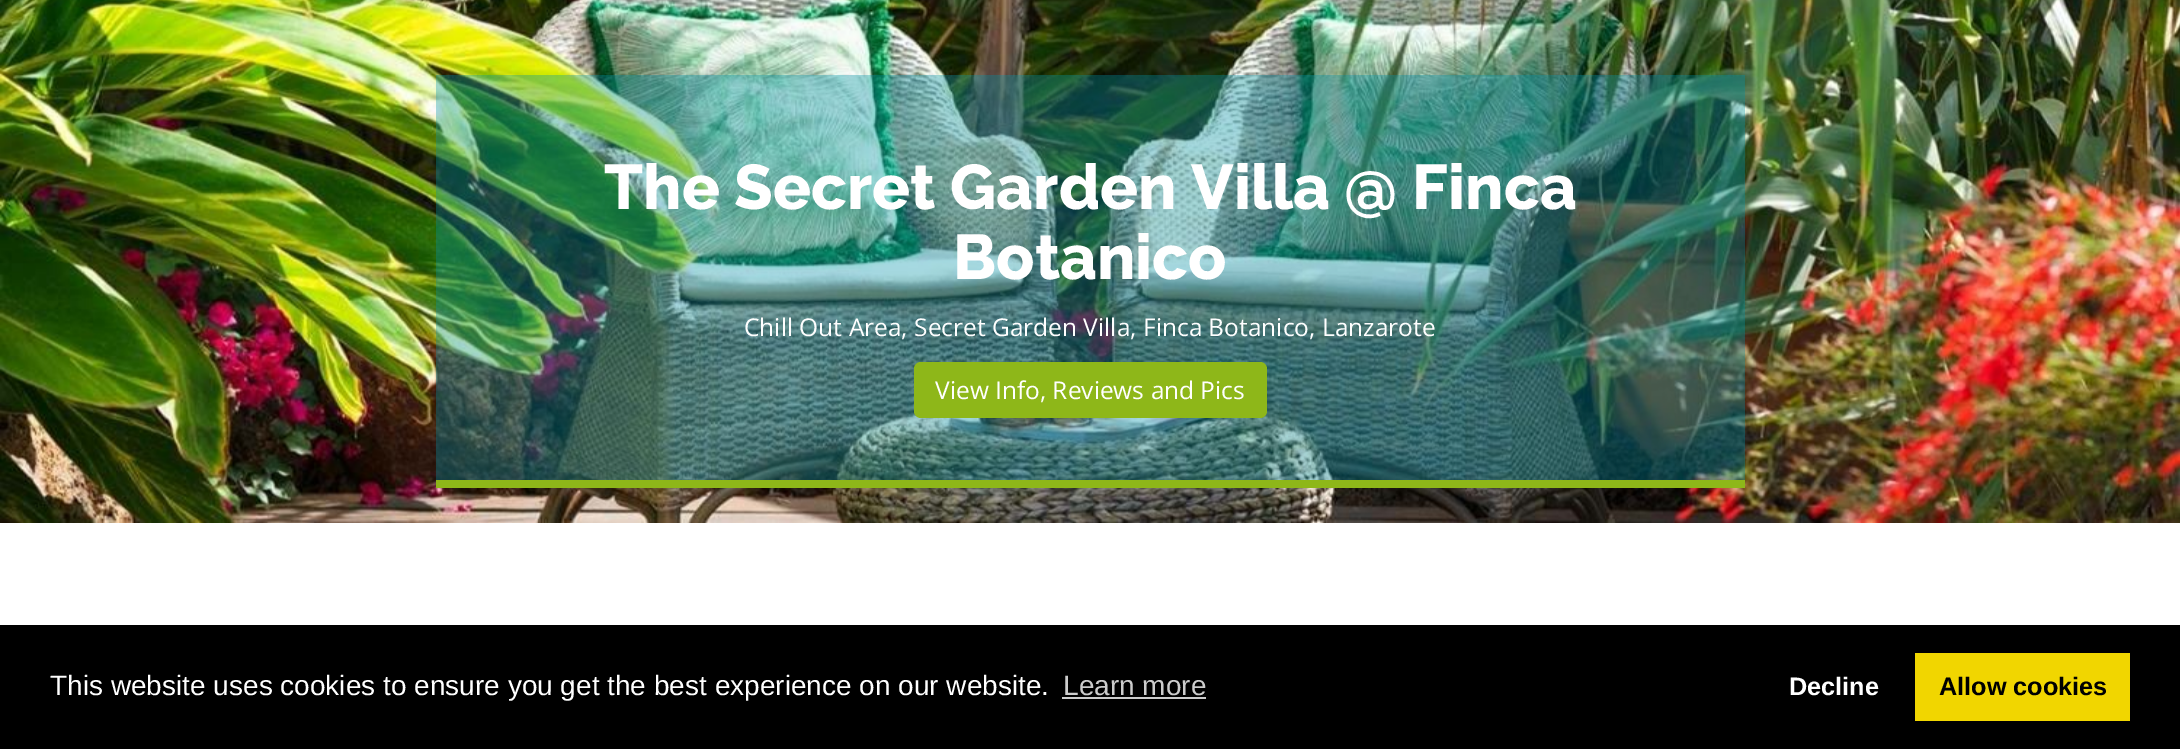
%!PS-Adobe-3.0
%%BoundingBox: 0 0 2180 749
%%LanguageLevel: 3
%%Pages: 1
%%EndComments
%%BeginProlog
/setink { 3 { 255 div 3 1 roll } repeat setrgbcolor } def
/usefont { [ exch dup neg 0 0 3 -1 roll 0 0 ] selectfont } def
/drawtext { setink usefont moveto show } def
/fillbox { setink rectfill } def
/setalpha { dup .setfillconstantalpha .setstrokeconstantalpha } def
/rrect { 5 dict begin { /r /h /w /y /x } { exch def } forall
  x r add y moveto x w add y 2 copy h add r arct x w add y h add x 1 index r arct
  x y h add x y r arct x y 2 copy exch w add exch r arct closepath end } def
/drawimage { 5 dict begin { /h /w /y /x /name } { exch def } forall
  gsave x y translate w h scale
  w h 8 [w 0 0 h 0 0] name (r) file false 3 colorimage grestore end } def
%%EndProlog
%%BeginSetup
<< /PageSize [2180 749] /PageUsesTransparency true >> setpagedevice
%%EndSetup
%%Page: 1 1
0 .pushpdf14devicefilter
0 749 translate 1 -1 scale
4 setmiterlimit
0 0 2180 749 255 255 255 fillbox
(assets/img1.rgb) 0 0 2180 523 drawimage
0.35 setalpha
436 75 1309 405 0 146 169 fillbox
1 setalpha
436 480 1309 8 142 183 25 fillbox
(The Secret Garden Villa @ Finca) 604 209 /Raleway-ExtraBold 63 255 255 255 drawtext
(Botanico) 953 279 /Raleway-ExtraBold 63 255 255 255 drawtext
(Chill Out Area, Secret Garden Villa, Finca Botanico, Lanzarote) 744 336 /OpenSans-Regular 24.5 255 255 255 drawtext
142 183 25 setink
914 362 353 56 7 rrect fill
(View Info, Reviews and Pics) 935 399 /OpenSans-Regular 24.5 255 255 255 drawtext
0 625 2180 124 0 0 0 fillbox
(This website uses cookies to ensure you get the best experience on our website.) 50 695 /LiberationSans-Regular 28 255 255 255 drawtext
(Learn more) 1063 695 /LiberationSans-Regular 28 204 204 204 drawtext
1062 697 144 2 204 204 204 fillbox
(Decline) 1789 695 /LiberationSans-Bold 25.25 255 255 255 drawtext
1915 653 215 68 241 214 0 fillbox
(Allow cookies) 1939 695 /LiberationSans-Bold 25.25 0 0 0 drawtext
.poppdf14devicefilter showpage
%%EOF
